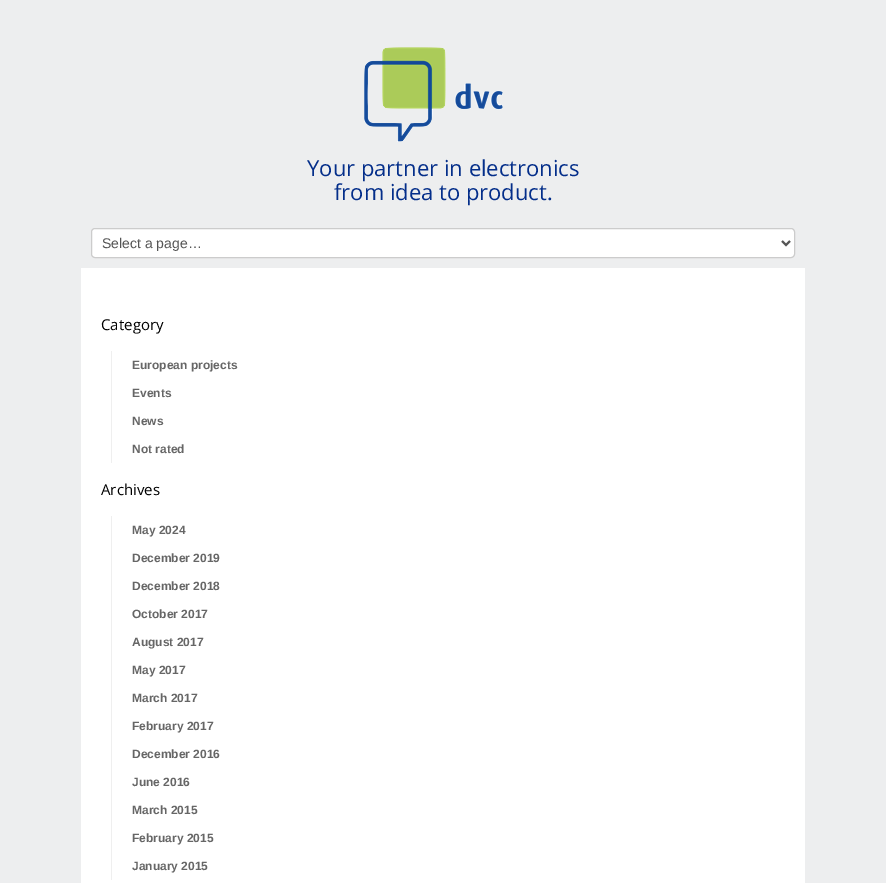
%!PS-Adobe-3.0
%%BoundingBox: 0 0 886 883
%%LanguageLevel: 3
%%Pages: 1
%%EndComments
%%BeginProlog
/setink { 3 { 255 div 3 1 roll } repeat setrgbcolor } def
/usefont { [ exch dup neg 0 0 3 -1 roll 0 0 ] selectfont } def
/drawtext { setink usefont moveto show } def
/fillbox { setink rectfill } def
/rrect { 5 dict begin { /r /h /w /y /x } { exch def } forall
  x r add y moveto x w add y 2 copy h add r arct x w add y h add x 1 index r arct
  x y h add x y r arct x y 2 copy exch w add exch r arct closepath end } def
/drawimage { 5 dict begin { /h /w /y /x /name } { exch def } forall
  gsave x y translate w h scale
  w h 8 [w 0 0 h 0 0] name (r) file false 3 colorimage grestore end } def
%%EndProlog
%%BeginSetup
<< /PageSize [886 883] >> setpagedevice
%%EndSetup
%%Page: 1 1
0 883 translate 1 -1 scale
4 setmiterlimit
0 0 886 883 237 238 239 fillbox
(assets/img1.rgb) 364 47 139 95 drawimage
(Your partner in electronics) 307 176 /OpenSans-Regular 22 4 46 138 drawtext
(from idea to product.) 334 200 /OpenSans-Regular 22 4 46 138 drawtext
255 255 255 setink
91.5 228.5 703 29 3.5 rrect gsave fill grestore
204 204 204 setink
stroke
85 85 85 setink
2 setlinewidth
782 241 moveto 786 245 lineto 790 241 lineto stroke
(Select a page…) 102 248 /LiberationSans-Regular 14 85 85 85 drawtext
81 268 724 615 255 255 255 fillbox
(Category) 101 330 /OpenSans-Regular 15 0 0 0 drawtext
111 351 1 112 239 239 239 fillbox
(European projects) 132 369 /LiberationSans-Bold 12 102 102 102 drawtext
(Events) 132 397 /LiberationSans-Bold 12 102 102 102 drawtext
(News) 132 425 /LiberationSans-Bold 12 102 102 102 drawtext
(Not rated) 132 453 /LiberationSans-Bold 12 102 102 102 drawtext
(Archives) 101 495 /OpenSans-Regular 15 0 0 0 drawtext
111 516 1 364 239 239 239 fillbox
(May 2024) 132 534 /LiberationSans-Bold 12 102 102 102 drawtext
(December 2019) 132 562 /LiberationSans-Bold 12 102 102 102 drawtext
(December 2018) 132 590 /LiberationSans-Bold 12 102 102 102 drawtext
(October 2017) 132 618 /LiberationSans-Bold 12 102 102 102 drawtext
(August 2017) 132 646 /LiberationSans-Bold 12 102 102 102 drawtext
(May 2017) 132 674 /LiberationSans-Bold 12 102 102 102 drawtext
(March 2017) 132 702 /LiberationSans-Bold 12 102 102 102 drawtext
(February 2017) 132 730 /LiberationSans-Bold 12 102 102 102 drawtext
(December 2016) 132 758 /LiberationSans-Bold 12 102 102 102 drawtext
(June 2016) 132 786 /LiberationSans-Bold 12 102 102 102 drawtext
(March 2015) 132 814 /LiberationSans-Bold 12 102 102 102 drawtext
(February 2015) 132 842 /LiberationSans-Bold 12 102 102 102 drawtext
(January 2015) 132 870 /LiberationSans-Bold 12 102 102 102 drawtext
showpage
%%EOF
